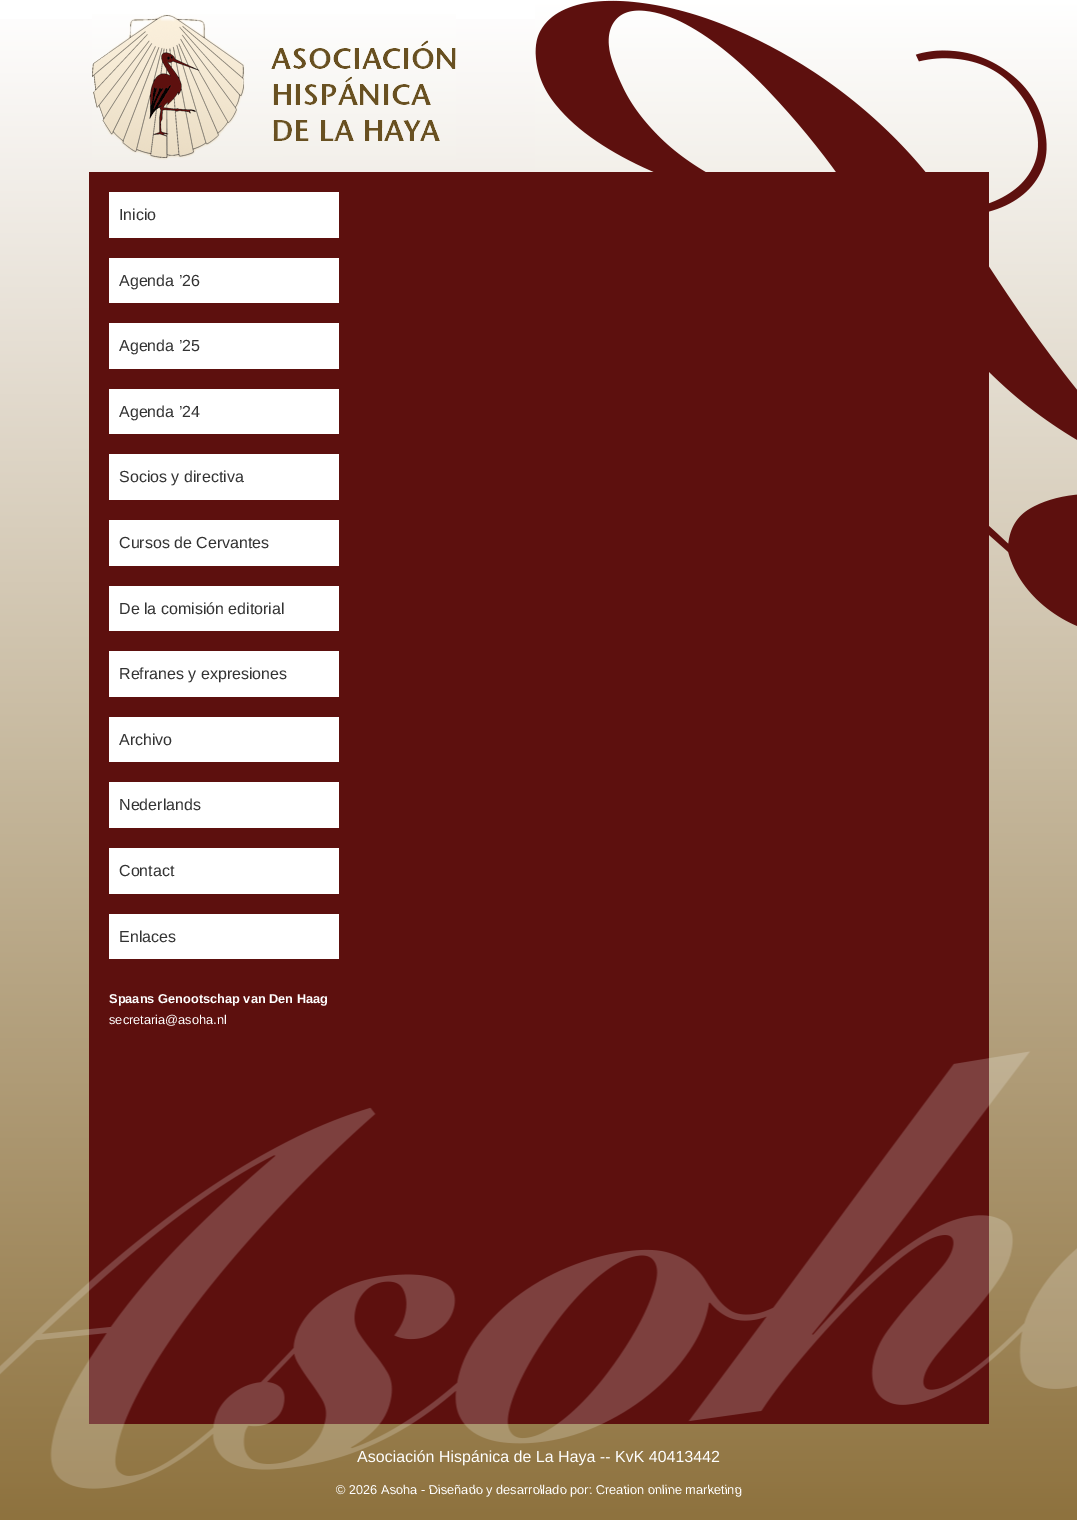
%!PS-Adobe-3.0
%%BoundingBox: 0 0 1077 1520
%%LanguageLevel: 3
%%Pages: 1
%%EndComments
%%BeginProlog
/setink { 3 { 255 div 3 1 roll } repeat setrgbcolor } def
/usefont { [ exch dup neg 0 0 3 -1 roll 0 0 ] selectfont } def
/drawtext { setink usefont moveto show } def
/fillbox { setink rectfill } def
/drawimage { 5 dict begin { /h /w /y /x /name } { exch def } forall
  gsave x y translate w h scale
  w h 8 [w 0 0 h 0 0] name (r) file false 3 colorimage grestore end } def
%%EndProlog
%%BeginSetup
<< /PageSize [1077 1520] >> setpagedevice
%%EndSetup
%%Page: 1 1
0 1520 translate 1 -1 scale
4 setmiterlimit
0 0 1077 1520 255 255 255 fillbox
gsave 0 19 moveto 1077 19 lineto 1077 1520 lineto 0 1520 lineto closepath clip newpath
<< /ShadingType 2 /ColorSpace /DeviceRGB /Coords [538 0 539 1520] /Extend [true true] /Function << /FunctionType 2 /Domain [0 1] /C0 [1 1 1] /C1 [0.557 0.447 0.243] /N 1 >> >> shfill grestore
(assets/img1.rgb) 92 14 364 146 drawimage
(assets/img2.rgb) 535 0 542 626 drawimage
89 172 900 1252 93 16 14 fillbox
109 192 230 46 255 255 255 fillbox
(Inicio) 119 220 /LiberationSans-Regular 16 51 51 51 drawtext
109 258 230 45 255 255 255 fillbox
(Agenda ’26) 119 286 /LiberationSans-Regular 16 51 51 51 drawtext
109 323 230 46 255 255 255 fillbox
(Agenda ’25) 119 351 /LiberationSans-Regular 16 51 51 51 drawtext
109 389 230 45 255 255 255 fillbox
(Agenda ’24) 119 417 /LiberationSans-Regular 16 51 51 51 drawtext
109 454 230 46 255 255 255 fillbox
(Socios y directiva) 119 482 /LiberationSans-Regular 16 51 51 51 drawtext
109 520 230 46 255 255 255 fillbox
(Cursos de Cervantes) 119 548 /LiberationSans-Regular 16 51 51 51 drawtext
109 586 230 45 255 255 255 fillbox
(De la comisión editorial) 119 614 /LiberationSans-Regular 16 51 51 51 drawtext
109 651 230 46 255 255 255 fillbox
(Refranes y expresiones) 119 679 /LiberationSans-Regular 16 51 51 51 drawtext
109 717 230 45 255 255 255 fillbox
(Archivo) 119 745 /LiberationSans-Regular 16 51 51 51 drawtext
109 782 230 46 255 255 255 fillbox
(Nederlands) 119 810 /LiberationSans-Regular 16 51 51 51 drawtext
109 848 230 46 255 255 255 fillbox
(Contact) 119 876 /LiberationSans-Regular 16 51 51 51 drawtext
109 914 230 45 255 255 255 fillbox
(Enlaces) 119 942 /LiberationSans-Regular 16 51 51 51 drawtext
(Spaans Genootschap van Den Haag) 109 1003 /LiberationSans-Bold 12.8 255 255 255 drawtext
(secretaria@asoha.nl) 109 1024 /LiberationSans-Regular 12.8 255 255 255 drawtext
(Asociación Hispánica de La Haya -- KvK 40413442) 357 1462 /LiberationSans-Regular 16 255 255 255 drawtext
(© 2026 Asoha - Diseñado y desarrollado por: Creation online marketing) 336 1494 /LiberationSans-Regular 12.8 255 255 255 drawtext
(assets/img3.rgb) 0 1051 1077 438 drawimage
showpage
%%EOF
